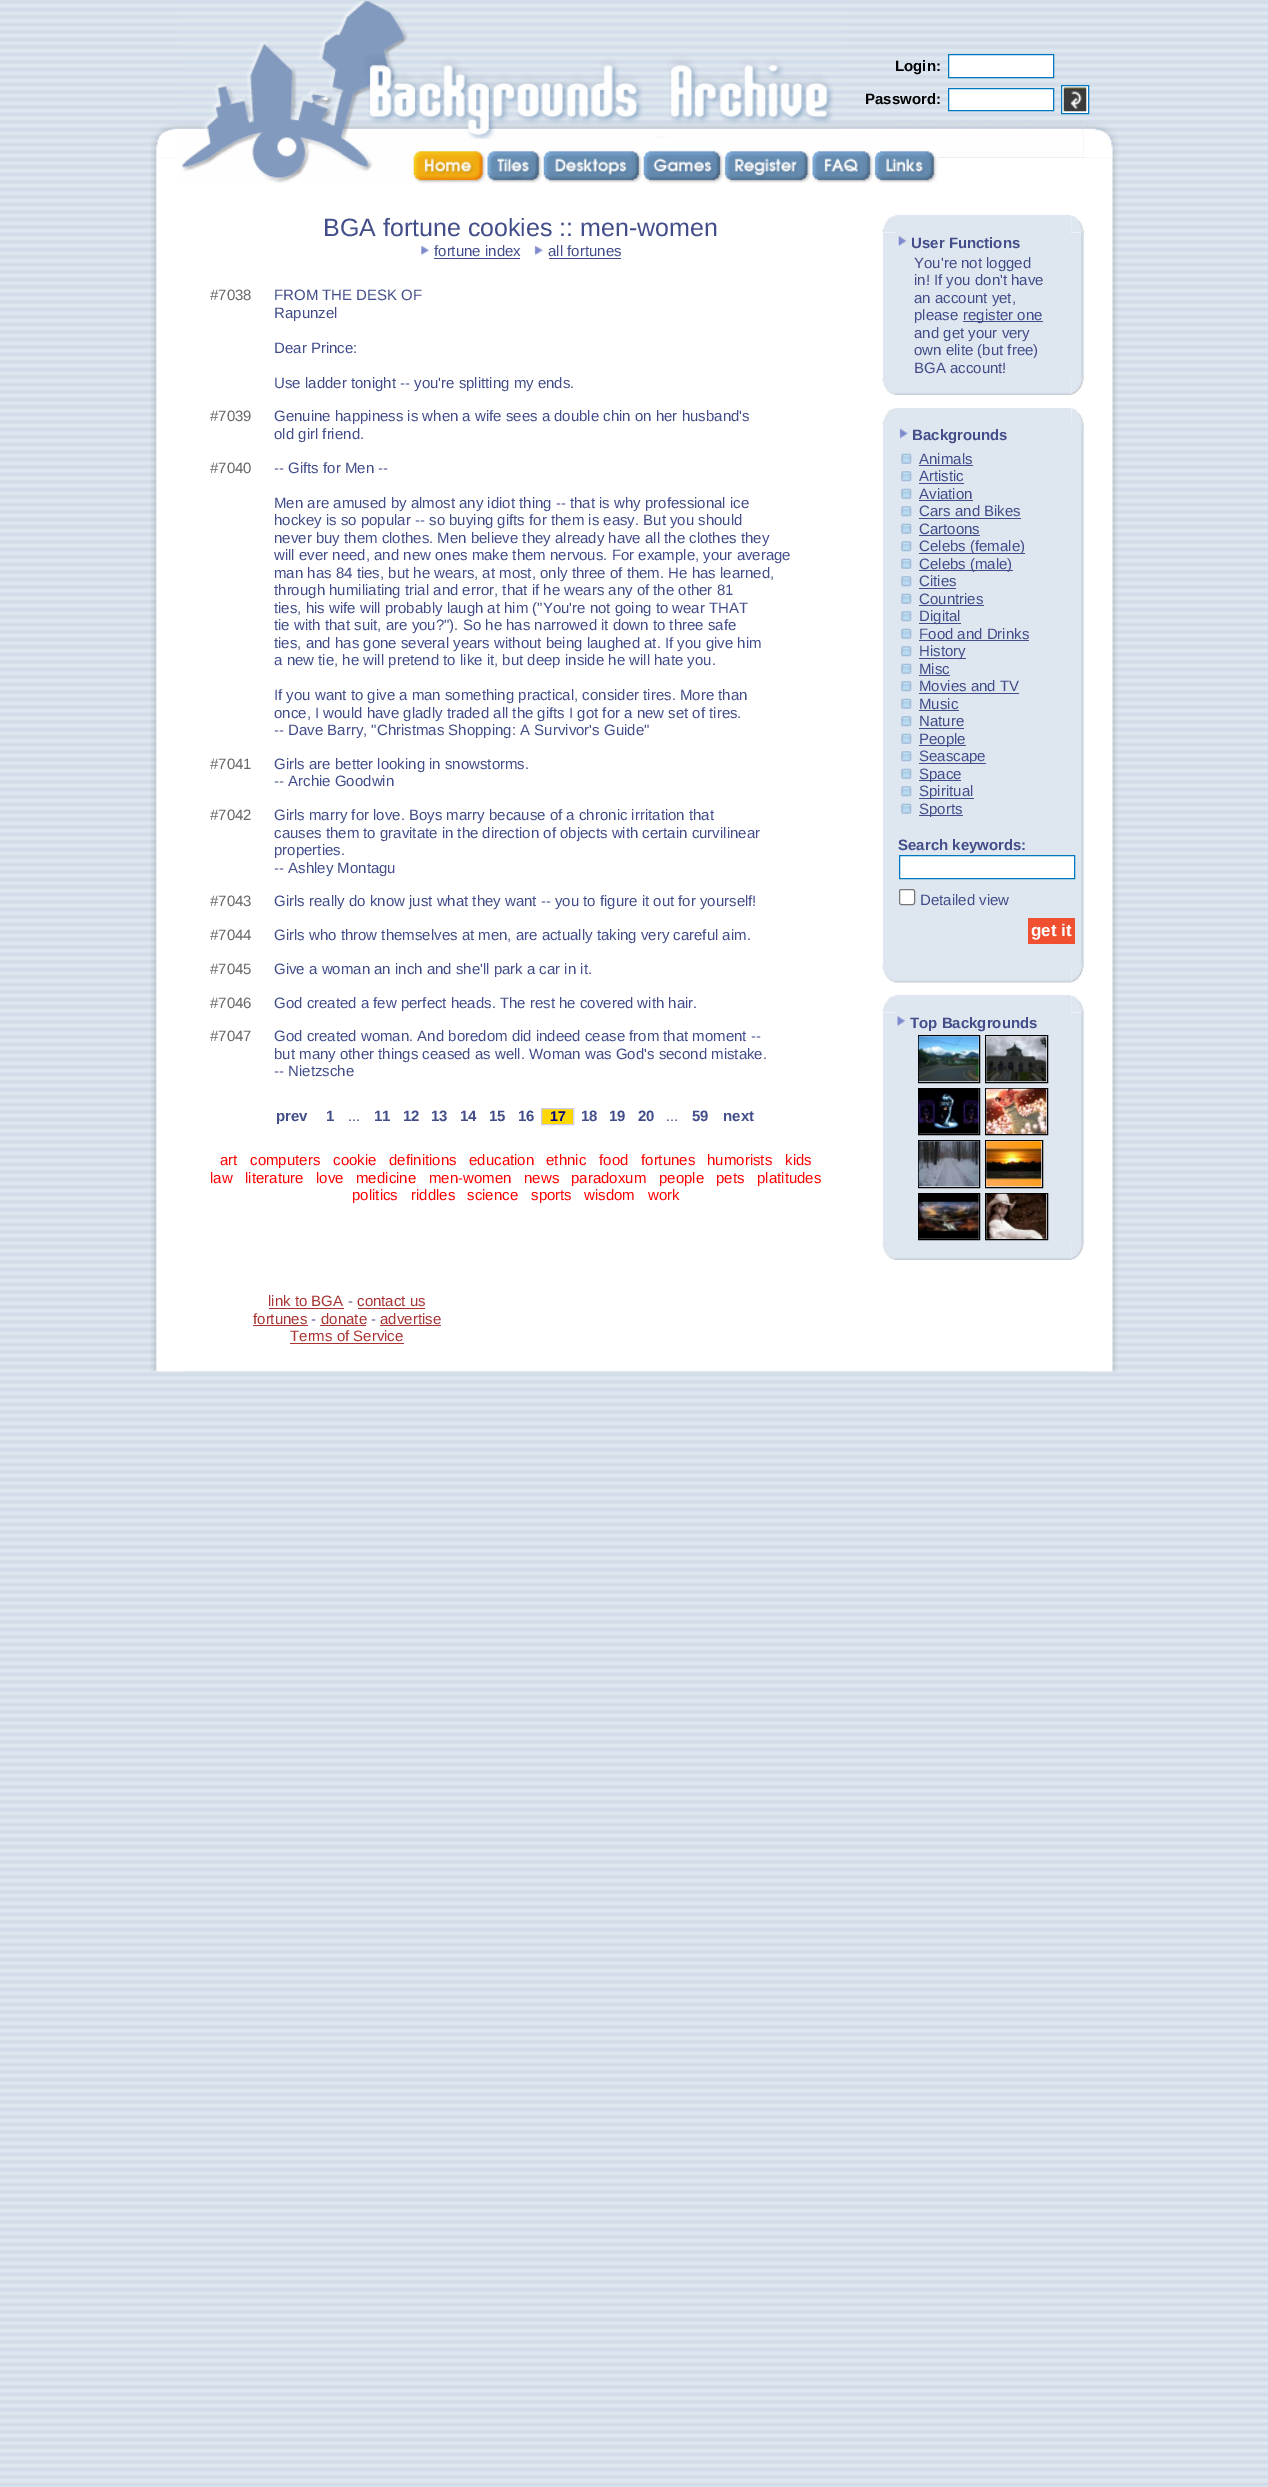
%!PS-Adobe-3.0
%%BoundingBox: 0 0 1268 2487
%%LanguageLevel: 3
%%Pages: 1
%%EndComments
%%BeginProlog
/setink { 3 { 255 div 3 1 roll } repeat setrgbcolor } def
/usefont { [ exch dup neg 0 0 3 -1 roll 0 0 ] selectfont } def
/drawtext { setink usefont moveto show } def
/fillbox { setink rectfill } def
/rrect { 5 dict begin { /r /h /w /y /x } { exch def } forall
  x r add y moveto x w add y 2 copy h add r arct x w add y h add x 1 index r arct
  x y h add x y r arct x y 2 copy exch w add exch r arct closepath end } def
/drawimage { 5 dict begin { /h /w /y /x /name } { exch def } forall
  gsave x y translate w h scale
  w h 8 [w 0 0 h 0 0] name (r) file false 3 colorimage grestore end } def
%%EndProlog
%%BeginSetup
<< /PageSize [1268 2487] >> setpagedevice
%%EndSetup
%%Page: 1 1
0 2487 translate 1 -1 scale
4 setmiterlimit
0 0 1268 2487 255 255 255 fillbox
(assets/img1.rgb) 0 0 1268 2487 drawimage
(assets/img12.rgb) 843 116 241 42 drawimage
(assets/img14.rgb) 150 157 35 1215 drawimage
185 158 899 1213 255 255 255 fillbox
(assets/img2.rgb) 179 1 665 182 drawimage
(Login:) 895 71 /LiberationSans-Bold 15 0 0 0 drawtext
255 255 255 setink
948.5 54.5 moveto 1053.5 54.5 lineto 1053.5 77.5 lineto 948.5 77.5 lineto closepath gsave fill grestore
0 120 191 setink
stroke
(Password:) 865 104 /LiberationSans-Bold 15 0 0 0 drawtext
255 255 255 setink
948.5 88.5 moveto 1053.5 88.5 lineto 1053.5 110.5 lineto 948.5 110.5 lineto closepath gsave fill grestore
0 120 191 setink
stroke
255 255 255 setink
1061.5 85.5 moveto 1088.5 85.5 lineto 1088.5 113.5 lineto 1061.5 113.5 lineto closepath gsave fill grestore
0 120 191 setink
stroke
(assets/img3.rgb) 1063 87 24 25 drawimage
(assets/img4.rgb) 412 151 74 33 drawimage
(assets/img5.rgb) 487 151 55 32 drawimage
(assets/img6.rgb) 543 151 99 32 drawimage
(assets/img7.rgb) 643 150 81 34 drawimage
(assets/img8.rgb) 724 151 87 32 drawimage
(assets/img9.rgb) 812 151 62 32 drawimage
(assets/img10.rgb) 874 151 64 32 drawimage
(assets/img11.rgb) 150 123 29 35 drawimage
1081 232 3 146 208 216 224 fillbox
1081 425 3 540 208 216 224 fillbox
1081 1012 3 231 208 216 224 fillbox
(assets/img40.rgb) 1083 157 35 1215 drawimage
(assets/img13.rgb) 1084 123 35 35 drawimage
(BGA fortune cookies :: men-women) 323 236 /LiberationSans-Regular 25 66 77 137 drawtext
(assets/img15.rgb) 421 246 8 10 drawimage
(fortune index) 434 256 /LiberationSans-Regular 15 66 77 137 drawtext
434 258 86 1 66 77 137 fillbox
(assets/img16.rgb) 534 246 9 10 drawimage
(all fortunes) 548 256 /LiberationSans-Regular 15 66 77 137 drawtext
549 258 72 1 66 77 137 fillbox
(#7038) 210 300 /LiberationSans-Regular 15 102 102 102 drawtext
(FROM THE DESK OF) 274 300 /LiberationSans-Regular 15 66 77 137 drawtext
(Rapunzel) 274 318 /LiberationSans-Regular 15 66 77 137 drawtext
(Dear Prince:) 274 353 /LiberationSans-Regular 15 66 77 137 drawtext
(Use ladder tonight -- you're splitting my ends.) 274 388 /LiberationSans-Regular 15 66 77 137 drawtext
(#7039) 210 421 /LiberationSans-Regular 15 102 102 102 drawtext
(Genuine happiness is when a wife sees a double chin on her husband's) 274 421 /LiberationSans-Regular 15 66 77 137 drawtext
(old girl friend.) 274 439 /LiberationSans-Regular 15 66 77 137 drawtext
(#7040) 210 473 /LiberationSans-Regular 15 102 102 102 drawtext
(-- Gifts for Men --) 274 473 /LiberationSans-Regular 15 66 77 137 drawtext
(Men are amused by almost any idiot thing -- that is why professional ice) 274 508 /LiberationSans-Regular 15 66 77 137 drawtext
(hockey is so popular -- so buying gifts for them is easy. But you should) 274 525 /LiberationSans-Regular 15 66 77 137 drawtext
(never buy them clothes. Men believe they already have all the clothes they) 274 543 /LiberationSans-Regular 15 66 77 137 drawtext
(will ever need, and new ones make them nervous. For example, your average) 274 560 /LiberationSans-Regular 15 66 77 137 drawtext
(man has 84 ties, but he wears, at most, only three of them. He has learned,) 274 578 /LiberationSans-Regular 15 66 77 137 drawtext
(through humiliating trial and error, that if he wears any of the other 81) 274 595 /LiberationSans-Regular 15 66 77 137 drawtext
(ties, his wife will probably laugh at him \("You're not going to wear THAT) 274 613 /LiberationSans-Regular 15 66 77 137 drawtext
(tie with that suit, are you?"\). So he has narrowed it down to three safe) 274 630 /LiberationSans-Regular 15 66 77 137 drawtext
(ties, and has gone several years without being laughed at. If you give him) 274 648 /LiberationSans-Regular 15 66 77 137 drawtext
(a new tie, he will pretend to like it, but deep inside he will hate you.) 274 665 /LiberationSans-Regular 15 66 77 137 drawtext
(If you want to give a man something practical, consider tires. More than) 274 700 /LiberationSans-Regular 15 66 77 137 drawtext
(once, I would have gladly traded all the gifts I got for a new set of tires.) 274 718 /LiberationSans-Regular 15 66 77 137 drawtext
(-- Dave Barry, "Christmas Shopping: A Survivor's Guide") 274 735 /LiberationSans-Regular 15 66 77 137 drawtext
(#7041) 210 769 /LiberationSans-Regular 15 102 102 102 drawtext
(Girls are better looking in snowstorms.) 274 769 /LiberationSans-Regular 15 66 77 137 drawtext
(-- Archie Goodwin) 274 786 /LiberationSans-Regular 15 66 77 137 drawtext
(#7042) 210 820 /LiberationSans-Regular 15 102 102 102 drawtext
(Girls marry for love. Boys marry because of a chronic irritation that) 274 820 /LiberationSans-Regular 15 66 77 137 drawtext
(causes them to gravitate in the direction of objects with certain curvilinear) 274 838 /LiberationSans-Regular 15 66 77 137 drawtext
(properties.) 274 855 /LiberationSans-Regular 15 66 77 137 drawtext
(-- Ashley Montagu) 274 873 /LiberationSans-Regular 15 66 77 137 drawtext
(#7043) 210 906 /LiberationSans-Regular 15 102 102 102 drawtext
(Girls really do know just what they want -- you to figure it out for yourself!) 274 906 /LiberationSans-Regular 15 66 77 137 drawtext
(#7044) 210 940 /LiberationSans-Regular 15 102 102 102 drawtext
(Girls who throw themselves at men, are actually taking very careful aim.) 274 940 /LiberationSans-Regular 15 66 77 137 drawtext
(#7045) 210 974 /LiberationSans-Regular 15 102 102 102 drawtext
(Give a woman an inch and she'll park a car in it.) 274 974 /LiberationSans-Regular 15 66 77 137 drawtext
(#7046) 210 1008 /LiberationSans-Regular 15 102 102 102 drawtext
(God created a few perfect heads. The rest he covered with hair.) 274 1008 /LiberationSans-Regular 15 66 77 137 drawtext
(#7047) 210 1041 /LiberationSans-Regular 15 102 102 102 drawtext
(God created woman. And boredom did indeed cease from that moment --) 274 1041 /LiberationSans-Regular 15 66 77 137 drawtext
(but many other things ceased as well. Woman was God's second mistake.) 274 1059 /LiberationSans-Regular 15 66 77 137 drawtext
(-- Nietzsche) 274 1076 /LiberationSans-Regular 15 66 77 137 drawtext
(prev) 276 1121 /LiberationSans-Bold 15 66 77 137 drawtext
(1) 326 1121 /LiberationSans-Bold 15 66 77 137 drawtext
(...) 348 1121 /LiberationSans-Regular 15 66 77 137 drawtext
(11) 374 1121 /LiberationSans-Bold 15 66 77 137 drawtext
(12) 403 1121 /LiberationSans-Bold 15 66 77 137 drawtext
(13) 431 1121 /LiberationSans-Bold 15 66 77 137 drawtext
(14) 460 1121 /LiberationSans-Bold 15 66 77 137 drawtext
(15) 489 1121 /LiberationSans-Bold 15 66 77 137 drawtext
(16) 518 1121 /LiberationSans-Bold 15 66 77 137 drawtext
255 215 0 setink
541.5 1108.5 moveto 573.5 1108.5 lineto 573.5 1124.5 lineto 541.5 1124.5 lineto closepath gsave fill grestore
204 204 238 setink
stroke
(17) 550 1121 /LiberationSans-Bold 14 0 0 128 drawtext
(18) 581 1121 /LiberationSans-Bold 15 66 77 137 drawtext
(19) 609 1121 /LiberationSans-Bold 15 66 77 137 drawtext
(20) 638 1121 /LiberationSans-Bold 15 66 77 137 drawtext
(...) 666 1121 /LiberationSans-Regular 15 66 77 137 drawtext
(59) 692 1121 /LiberationSans-Bold 15 66 77 137 drawtext
(next) 723 1121 /LiberationSans-Bold 15 66 77 137 drawtext
(art) 220 1165 /LiberationSans-Regular 15 255 0 0 drawtext
(computers) 250 1165 /LiberationSans-Regular 15 255 0 0 drawtext
(cookie) 333 1165 /LiberationSans-Regular 15 255 0 0 drawtext
(definitions) 389 1165 /LiberationSans-Regular 15 255 0 0 drawtext
(education) 469 1165 /LiberationSans-Regular 15 255 0 0 drawtext
(ethnic) 546 1165 /LiberationSans-Regular 15 255 0 0 drawtext
(food) 599 1165 /LiberationSans-Regular 15 255 0 0 drawtext
(fortunes) 641 1165 /LiberationSans-Regular 15 255 0 0 drawtext
(humorists) 707 1165 /LiberationSans-Regular 15 255 0 0 drawtext
(kids) 785 1165 /LiberationSans-Regular 15 255 0 0 drawtext
(law) 210 1183 /LiberationSans-Regular 15 255 0 0 drawtext
(literature) 245 1183 /LiberationSans-Regular 15 255 0 0 drawtext
(love) 316 1183 /LiberationSans-Regular 15 255 0 0 drawtext
(medicine) 356 1183 /LiberationSans-Regular 15 255 0 0 drawtext
(men-women) 429 1183 /LiberationSans-Regular 15 255 0 0 drawtext
(news) 524 1183 /LiberationSans-Regular 15 255 0 0 drawtext
(paradoxum) 571 1183 /LiberationSans-Regular 15 255 0 0 drawtext
(people) 659 1183 /LiberationSans-Regular 15 255 0 0 drawtext
(pets) 716 1183 /LiberationSans-Regular 15 255 0 0 drawtext
(platitudes) 757 1183 /LiberationSans-Regular 15 255 0 0 drawtext
(politics) 352 1200 /LiberationSans-Regular 15 255 0 0 drawtext
(riddles) 411 1200 /LiberationSans-Regular 15 255 0 0 drawtext
(science) 467 1200 /LiberationSans-Regular 15 255 0 0 drawtext
(sports) 531 1200 /LiberationSans-Regular 15 255 0 0 drawtext
(wisdom) 584 1200 /LiberationSans-Regular 15 255 0 0 drawtext
(work) 648 1200 /LiberationSans-Regular 15 255 0 0 drawtext
(assets/img17.rgb) 882 216 13 17 drawimage
895 215 176 18 222 230 239 fillbox
(assets/img18.rgb) 1071 216 13 17 drawimage
883 233 198 145 222 230 239 fillbox
(assets/img19.rgb) 898 236 9 11 drawimage
(User Functions) 911 248 /LiberationSans-Bold 15 66 77 137 drawtext
(You're not logged) 914 268 /LiberationSans-Regular 15 66 77 137 drawtext
(in! If you don't have) 914 285 /LiberationSans-Regular 15 66 77 137 drawtext
(an account yet,) 914 303 /LiberationSans-Regular 15 66 77 137 drawtext
(please) 914 320 /LiberationSans-Regular 15 66 77 137 drawtext
963 321 80 1 66 77 137 fillbox
(register one) 963 320 /LiberationSans-Regular 15 66 77 137 drawtext
(and get your very) 914 338 /LiberationSans-Regular 15 66 77 137 drawtext
(own elite \(but free\)) 914 355 /LiberationSans-Regular 15 66 77 137 drawtext
(BGA account!) 914 373 /LiberationSans-Regular 15 66 77 137 drawtext
(assets/img20.rgb) 882 377 13 18 drawimage
(assets/img21.rgb) 895 378 177 17 drawimage
(assets/img22.rgb) 1071 377 13 18 drawimage
(assets/img23.rgb) 882 408 13 17 drawimage
895 408 176 17 222 230 239 fillbox
(assets/img24.rgb) 1071 408 13 17 drawimage
883 425 198 540 222 230 239 fillbox
(assets/img25.rgb) 899 428 9 11 drawimage
(Backgrounds) 912 440 /LiberationSans-Bold 15 66 77 137 drawtext
(assets/img26.rgb) 901 453 11 11 drawimage
(Animals) 919 464 /LiberationSans-Regular 15 66 77 137 drawtext
919 465 54 1 66 77 137 fillbox
(assets/img27.rgb) 901 471 11 11 drawimage
(Artistic) 919 481 /LiberationSans-Regular 15 66 77 137 drawtext
919 483 45 1 66 77 137 fillbox
(assets/img26.rgb) 901 488 11 11 drawimage
(Aviation) 919 499 /LiberationSans-Regular 15 66 77 137 drawtext
919 500 54 1 66 77 137 fillbox
(assets/img27.rgb) 901 506 11 11 drawimage
(Cars and Bikes) 919 516 /LiberationSans-Regular 15 66 77 137 drawtext
919 518 102 1 66 77 137 fillbox
(assets/img26.rgb) 901 523 11 11 drawimage
(Cartoons) 919 534 /LiberationSans-Regular 15 66 77 137 drawtext
919 535 61 1 66 77 137 fillbox
(assets/img27.rgb) 901 541 11 11 drawimage
919 553 106 1 66 77 137 fillbox
(Celebs \(female\)) 919 551 /LiberationSans-Regular 15 66 77 137 drawtext
(assets/img26.rgb) 901 558 11 11 drawimage
919 570 94 1 66 77 137 fillbox
(Celebs \(male\)) 919 569 /LiberationSans-Regular 15 66 77 137 drawtext
(assets/img27.rgb) 901 576 11 11 drawimage
(Cities) 919 586 /LiberationSans-Regular 15 66 77 137 drawtext
919 588 37 1 66 77 137 fillbox
(assets/img26.rgb) 901 593 11 11 drawimage
(Countries) 919 604 /LiberationSans-Regular 15 66 77 137 drawtext
919 605 65 1 66 77 137 fillbox
(assets/img27.rgb) 901 611 11 11 drawimage
919 623 42 1 66 77 137 fillbox
(Digital) 919 621 /LiberationSans-Regular 15 66 77 137 drawtext
(assets/img26.rgb) 901 628 11 11 drawimage
(Food and Drinks) 919 639 /LiberationSans-Regular 15 66 77 137 drawtext
919 640 110 1 66 77 137 fillbox
(assets/img27.rgb) 901 646 11 11 drawimage
919 658 47 1 66 77 137 fillbox
(History) 919 656 /LiberationSans-Regular 15 66 77 137 drawtext
(assets/img26.rgb) 901 663 11 11 drawimage
(Misc) 919 674 /LiberationSans-Regular 15 66 77 137 drawtext
919 675 31 1 66 77 137 fillbox
(assets/img27.rgb) 901 681 11 11 drawimage
(Movies and TV) 919 691 /LiberationSans-Regular 15 66 77 137 drawtext
919 693 100 1 66 77 137 fillbox
(assets/img26.rgb) 901 698 11 11 drawimage
(Music) 919 709 /LiberationSans-Regular 15 66 77 137 drawtext
919 710 40 1 66 77 137 fillbox
(assets/img27.rgb) 901 716 11 11 drawimage
(Nature) 919 726 /LiberationSans-Regular 15 66 77 137 drawtext
919 728 45 1 66 77 137 fillbox
(assets/img26.rgb) 901 733 11 11 drawimage
919 745 47 1 66 77 137 fillbox
(People) 919 744 /LiberationSans-Regular 15 66 77 137 drawtext
(assets/img27.rgb) 901 751 11 11 drawimage
919 763 67 1 66 77 137 fillbox
(Seascape) 919 761 /LiberationSans-Regular 15 66 77 137 drawtext
(assets/img26.rgb) 901 768 11 11 drawimage
919 780 42 1 66 77 137 fillbox
(Space) 919 779 /LiberationSans-Regular 15 66 77 137 drawtext
(assets/img27.rgb) 901 786 11 11 drawimage
919 798 55 1 66 77 137 fillbox
(Spiritual) 919 796 /LiberationSans-Regular 15 66 77 137 drawtext
(assets/img26.rgb) 901 803 11 11 drawimage
919 815 44 1 66 77 137 fillbox
(Sports) 919 814 /LiberationSans-Regular 15 66 77 137 drawtext
(Search keywords:) 898 850 /LiberationSans-Bold 15 66 77 137 drawtext
255 255 255 setink
899.5 855.5 moveto 1074.5 855.5 lineto 1074.5 878.5 lineto 899.5 878.5 lineto closepath gsave fill grestore
0 120 191 setink
stroke
255 255 255 setink
899.5 889.5 15 15 2 rrect gsave fill grestore
118 118 118 setink
stroke
(Detailed view) 920 905 /LiberationSans-Regular 15 66 77 137 drawtext
1028 918 47 26 240 80 48 fillbox
(get it) 1031 936 /LiberationSans-Bold 17 255 255 255 drawtext
(assets/img28.rgb) 882 965 13 18 drawimage
(assets/img29.rgb) 895 965 177 18 drawimage
(assets/img30.rgb) 1071 965 13 18 drawimage
(assets/img17.rgb) 882 996 13 17 drawimage
895 995 176 18 222 230 239 fillbox
(assets/img18.rgb) 1071 996 13 17 drawimage
883 1013 198 230 222 230 239 fillbox
(assets/img31.rgb) 897 1016 9 11 drawimage
(Top Backgrounds) 910 1028 /LiberationSans-Bold 15 66 77 137 drawtext
0 0 0 setink
918.5 1035.5 61 47 rectstroke
(assets/img32.rgb) 918 1036 61 46 drawimage
985.5 1035.5 62 47 rectstroke
(assets/img33.rgb) 986 1036 61 46 drawimage
918.5 1088.5 61 46 rectstroke
(assets/img34.rgb) 918 1089 61 45 drawimage
985.5 1088.5 62 46 rectstroke
(assets/img35.rgb) 986 1088 61 46 drawimage
918.5 1140.5 61 47 rectstroke
(assets/img36.rgb) 918 1141 61 46 drawimage
985.5 1140.5 57 47 rectstroke
(assets/img37.rgb) 986 1141 56 46 drawimage
918.5 1193.5 61 46 rectstroke
(assets/img38.rgb) 918 1194 61 45 drawimage
985.5 1193.5 62 46 rectstroke
(assets/img39.rgb) 986 1193 61 46 drawimage
(assets/img20.rgb) 882 1242 13 18 drawimage
(assets/img21.rgb) 895 1243 177 17 drawimage
(assets/img22.rgb) 1071 1242 13 18 drawimage
(link to BGA) 268 1306 /LiberationSans-Regular 15 170 51 51 drawtext
269 1308 75 1 170 51 51 fillbox
(-) 348 1306 /LiberationSans-Regular 15 66 77 137 drawtext
(contact us) 357 1306 /LiberationSans-Regular 15 170 51 51 drawtext
358 1308 67 1 170 51 51 fillbox
(fortunes) 253 1324 /LiberationSans-Regular 15 170 51 51 drawtext
253 1325 55 1 170 51 51 fillbox
(-) 311 1324 /LiberationSans-Regular 15 66 77 137 drawtext
(donate) 321 1324 /LiberationSans-Regular 15 170 51 51 drawtext
320 1325 46 1 170 51 51 fillbox
(-) 371 1324 /LiberationSans-Regular 15 66 77 137 drawtext
(advertise) 380 1324 /LiberationSans-Regular 15 170 51 51 drawtext
380 1325 61 1 170 51 51 fillbox
(Terms of Service) 290 1341 /LiberationSans-Regular 15 170 51 51 drawtext
290 1343 114 1 170 51 51 fillbox
showpage
%%EOF
